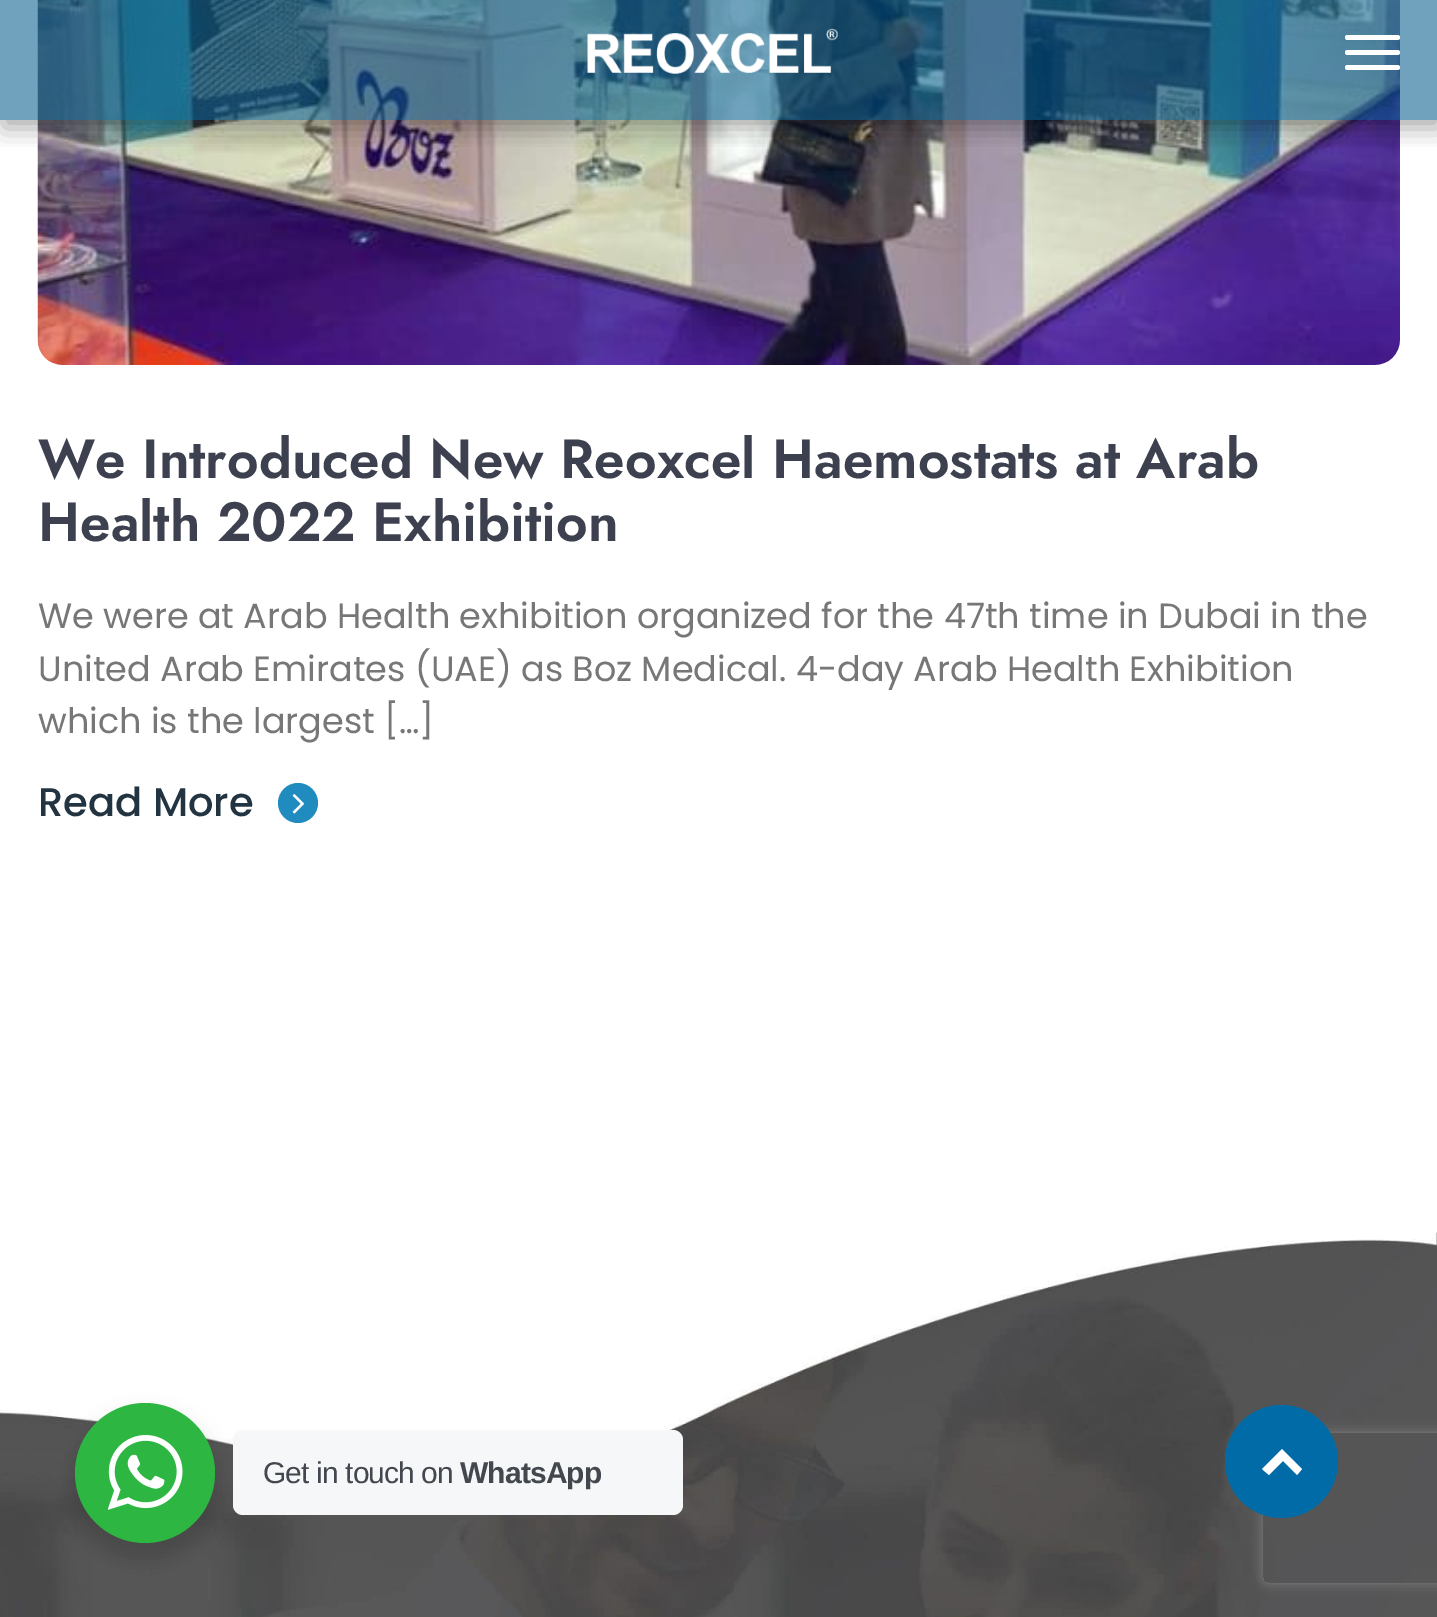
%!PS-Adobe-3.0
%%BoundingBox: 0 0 1437 1617
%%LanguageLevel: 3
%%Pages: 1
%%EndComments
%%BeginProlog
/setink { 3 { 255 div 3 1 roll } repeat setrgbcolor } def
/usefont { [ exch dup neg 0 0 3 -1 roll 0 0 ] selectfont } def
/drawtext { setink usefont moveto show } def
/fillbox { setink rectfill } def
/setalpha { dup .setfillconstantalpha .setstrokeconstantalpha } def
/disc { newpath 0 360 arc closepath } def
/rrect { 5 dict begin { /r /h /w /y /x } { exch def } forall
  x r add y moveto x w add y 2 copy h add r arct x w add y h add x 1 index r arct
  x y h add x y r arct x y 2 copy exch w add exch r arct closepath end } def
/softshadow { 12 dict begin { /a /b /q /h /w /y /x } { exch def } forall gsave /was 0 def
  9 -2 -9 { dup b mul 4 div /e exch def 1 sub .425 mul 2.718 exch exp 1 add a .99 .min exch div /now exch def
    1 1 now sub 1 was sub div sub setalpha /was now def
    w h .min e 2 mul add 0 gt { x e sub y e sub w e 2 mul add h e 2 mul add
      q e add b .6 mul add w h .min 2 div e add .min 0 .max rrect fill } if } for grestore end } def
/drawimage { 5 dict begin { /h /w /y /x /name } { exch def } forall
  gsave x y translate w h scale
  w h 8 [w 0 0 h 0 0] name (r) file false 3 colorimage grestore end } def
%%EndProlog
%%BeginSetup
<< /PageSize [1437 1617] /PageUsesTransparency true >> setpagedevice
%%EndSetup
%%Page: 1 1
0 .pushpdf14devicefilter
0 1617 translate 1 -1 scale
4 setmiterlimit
0 0 1437 1617 255 255 255 fillbox
(assets/img2.rgb) 37 0 1363 365 drawimage
gsave
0 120 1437 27 rectclip
0 0 0 setink
3 8 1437 120 0 12.5 0.33 softshadow
grestore
0.56 setalpha
0 0 1437 120 0 90 139 fillbox
1 setalpha
(assets/img1.rgb) 587 28 251 46 drawimage
255 255 255 setink
1345 35 55 5 2.5 rrect fill
1345 50 55 5 2.5 rrect fill
1345 65 55 5 2.5 rrect fill
(We Introduced New Reoxcel Haemostats at Arab) 38 478 /Jost-SemiBold 55 61 64 79 drawtext
(Health 2022 Exhibition) 38 541 /Jost-SemiBold 55 61 64 79 drawtext
(We were at Arab Health exhibition organized for the 47th time in Dubai in the) 38 628 /Poppins-Regular 35 119 119 119 drawtext
(United Arab Emirates \(UAE\) as Boz Medical. 4-day Arab Health Exhibition) 38 681 /Poppins-Regular 35 119 119 119 drawtext
(which is the largest […]) 38 733 /Poppins-Regular 35 119 119 119 drawtext
(Read More) 38 816 /Poppins-Medium 40 34 52 65 drawtext
32 139 191 setink
298 803 20 disc fill
(assets/img3.rgb) 292 794 13 20 drawimage
(assets/img4.rgb) 0 1232 1437 385 drawimage
gsave
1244 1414 moveto 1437 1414 lineto 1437 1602 lineto 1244 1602 lineto closepath 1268 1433 moveto 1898 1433 lineto 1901 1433 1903 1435 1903 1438 curveto 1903 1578 lineto 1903 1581 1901 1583 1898 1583 curveto 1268 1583 lineto 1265 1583 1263 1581 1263 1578 curveto 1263 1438 lineto 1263 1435 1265 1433 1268 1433 curveto closepath eoclip newpath
128 128 128 setink
1263 1433 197 150 5 6 1 softshadow
grestore
0 107 166 setink
1281.5 1461.5 56.5 disc fill
255 255 255 setink
1282 1449 moveto 1302 1469 lineto 1297 1475 lineto 1283 1461 lineto 1269 1475 lineto 1262 1469 lineto closepath fill
0 0 0 setink
70 1413 150 150 75 10 0.14 softshadow
45 183 66 setink
145 1473 70 disc fill
(assets/img5.rgb) 108 1435 75 75 drawimage
245 247 249 setink
233 1430 450 85 10 rrect fill
/LiberationSans-Regular 30 usefont
67 71 78 setink
263 1483 moveto -0.9 0 (Get in touch on) ashow
/LiberationSans-Bold 30 usefont
460 1483 moveto -0.9 0 (WhatsApp) ashow
.poppdf14devicefilter showpage
%%EOF
